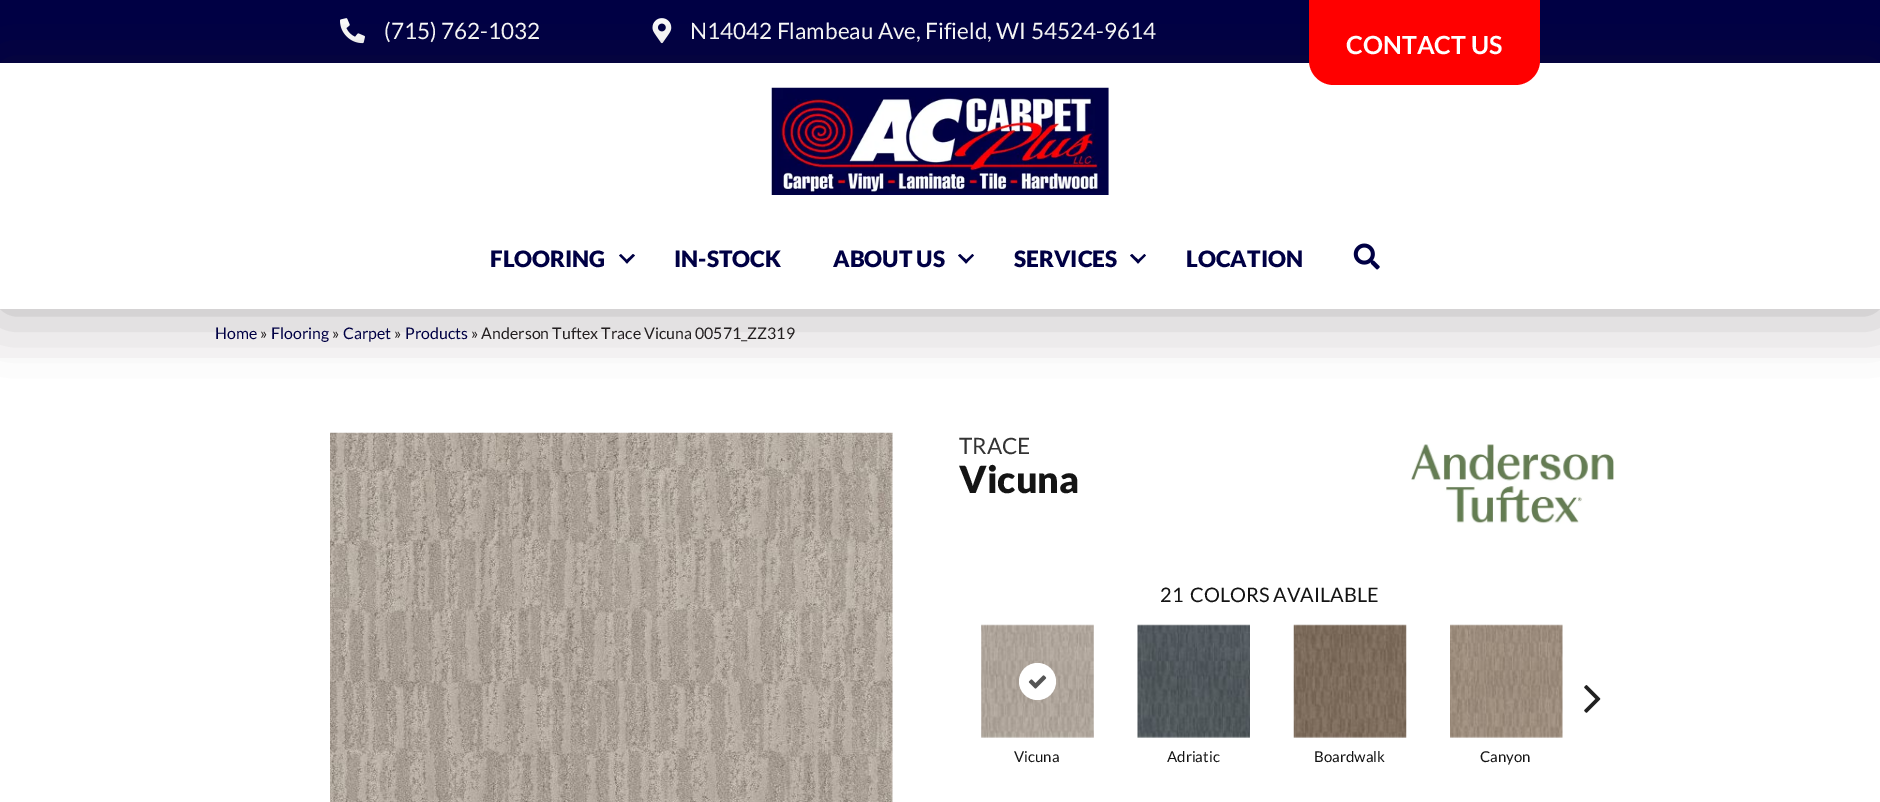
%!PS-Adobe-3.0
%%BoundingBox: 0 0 1880 802
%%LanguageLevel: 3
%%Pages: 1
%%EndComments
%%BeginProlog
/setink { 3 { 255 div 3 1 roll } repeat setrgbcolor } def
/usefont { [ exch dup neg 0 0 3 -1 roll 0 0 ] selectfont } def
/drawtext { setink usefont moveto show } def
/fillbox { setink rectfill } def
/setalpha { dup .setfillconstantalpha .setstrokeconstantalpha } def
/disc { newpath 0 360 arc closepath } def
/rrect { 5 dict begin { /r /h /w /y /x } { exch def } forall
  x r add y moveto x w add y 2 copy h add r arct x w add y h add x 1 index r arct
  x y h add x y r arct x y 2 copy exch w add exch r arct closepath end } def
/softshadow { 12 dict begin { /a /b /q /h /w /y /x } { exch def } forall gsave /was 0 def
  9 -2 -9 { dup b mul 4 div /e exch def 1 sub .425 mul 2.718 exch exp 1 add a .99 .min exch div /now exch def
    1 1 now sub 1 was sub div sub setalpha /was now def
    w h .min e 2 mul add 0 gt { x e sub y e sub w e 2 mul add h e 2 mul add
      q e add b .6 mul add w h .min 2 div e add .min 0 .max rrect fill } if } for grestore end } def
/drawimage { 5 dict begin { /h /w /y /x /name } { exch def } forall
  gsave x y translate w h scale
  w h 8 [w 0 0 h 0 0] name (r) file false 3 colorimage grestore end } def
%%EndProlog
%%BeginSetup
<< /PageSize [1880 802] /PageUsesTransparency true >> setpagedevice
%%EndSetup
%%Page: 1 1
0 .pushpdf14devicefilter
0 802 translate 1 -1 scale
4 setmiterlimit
0 0 1880 802 255 255 255 fillbox
0 0 1880 63 0 0 68 fillbox
(assets/img1.rgb) 340 18 25 26 drawimage
(\(715\) 762-1032) 384 39 /Lato-Regular 22.5 255 255 255 drawtext
(assets/img2.rgb) 652 18 20 26 drawimage
(N14042 Flambeau Ave, Fifield, WI 54524-9614) 690 39 /Lato-Regular 22.5 255 255 255 drawtext
0 309 1880 49 247 247 247 fillbox
35 31 32 setink
0 63 1880 246 0 31 0.32 softshadow
0 63 1880 246 255 255 255 fillbox
255 0 0 setink
1309 0 moveto 1540 0 lineto 1540 60 lineto 1540 74 1529 85 1515 85 curveto 1334 85 lineto 1320 85 1309 74 1309 60 curveto closepath fill
(CONTACT US) 1346 54 /Lato-Bold 25 255 255 255 drawtext
(assets/img3.rgb) 771 87 338 108 drawimage
(FLOORING) 490 267 /Lato-Black 22.5 0 0 68 drawtext
633 254 moveto 635 255.5 lineto 627 263.5 lineto 625 261.5 lineto closepath fill
621 254 moveto 628.5 261.5 lineto 627 263.5 lineto 619 255.5 lineto closepath fill
(IN-STOCK) 674 267 /Lato-Black 22.5 0 0 68 drawtext
(ABOUT US) 833 267 /Lato-Black 22.5 0 0 68 drawtext
972.5 254 moveto 974 255.5 lineto 966 263.5 lineto 964.5 261.5 lineto closepath fill
960 254 moveto 968 261.5 lineto 966 263.5 lineto 958 255.5 lineto closepath fill
(SERVICES) 1014 267 /Lato-Black 22.5 0 0 68 drawtext
1144.5 254 moveto 1146 255.5 lineto 1138 263.5 lineto 1136.5 261.5 lineto closepath fill
1132 254 moveto 1140 261.5 lineto 1138 263.5 lineto 1130 255.5 lineto closepath fill
(LOCATION) 1186 267 /Lato-Black 22.5 0 0 68 drawtext
(assets/img4.rgb) 1353 243 27 27 drawimage
(Home) 215 339 /Lato-Regular 15.9 0 0 68 drawtext
(») 260 339 /Lato-Regular 15.9 35 31 32 drawtext
(Flooring) 271 339 /Lato-Regular 15.9 0 0 68 drawtext
(») 332 339 /Lato-Regular 15.9 35 31 32 drawtext
(Carpet) 343 339 /Lato-Regular 15.9 0 0 68 drawtext
(») 394 339 /Lato-Regular 15.9 35 31 32 drawtext
(Products) 405 339 /Lato-Regular 15.9 0 0 68 drawtext
(» Anderson Tuftex Trace Vicuna 00571_ZZ319) 471 339 /Lato-Regular 15.9 35 31 32 drawtext
(assets/img5.rgb) 330 432 563 370 drawimage
(TRACE) 959 454 /Lato-Regular 22.5 51 51 51 drawtext
(Vicuna) 959 493 /Lato-Black 37.5 20 20 20 drawtext
(assets/img6.rgb) 1411 444 203 80 drawimage
(21) 1160 602 /Lato-Regular 20 20 20 20 drawtext
(COLORS AVAILABLE) 1190 602 /Lato-Regular 20 20 20 20 drawtext
(assets/img7.rgb) 1584 685 17 28 drawimage
(assets/img8.rgb) 981 624 113 114 drawimage
255 255 255 setink
1037.5 681.5 18.5 disc fill
(assets/img9.rgb) 1028 675 19 14 drawimage
(Vicuna) 1014 762 /Lato-Regular 15 20 20 20 drawtext
(assets/img10.rgb) 1137 624 113 114 drawimage
(Adriatic) 1167 762 /Lato-Regular 15 20 20 20 drawtext
(assets/img11.rgb) 1293 624 114 114 drawimage
(Boardwalk) 1314 762 /Lato-Regular 15 20 20 20 drawtext
(assets/img12.rgb) 1450 624 113 114 drawimage
(Canyon) 1480 762 /Lato-Regular 15 20 20 20 drawtext
.poppdf14devicefilter showpage
%%EOF
